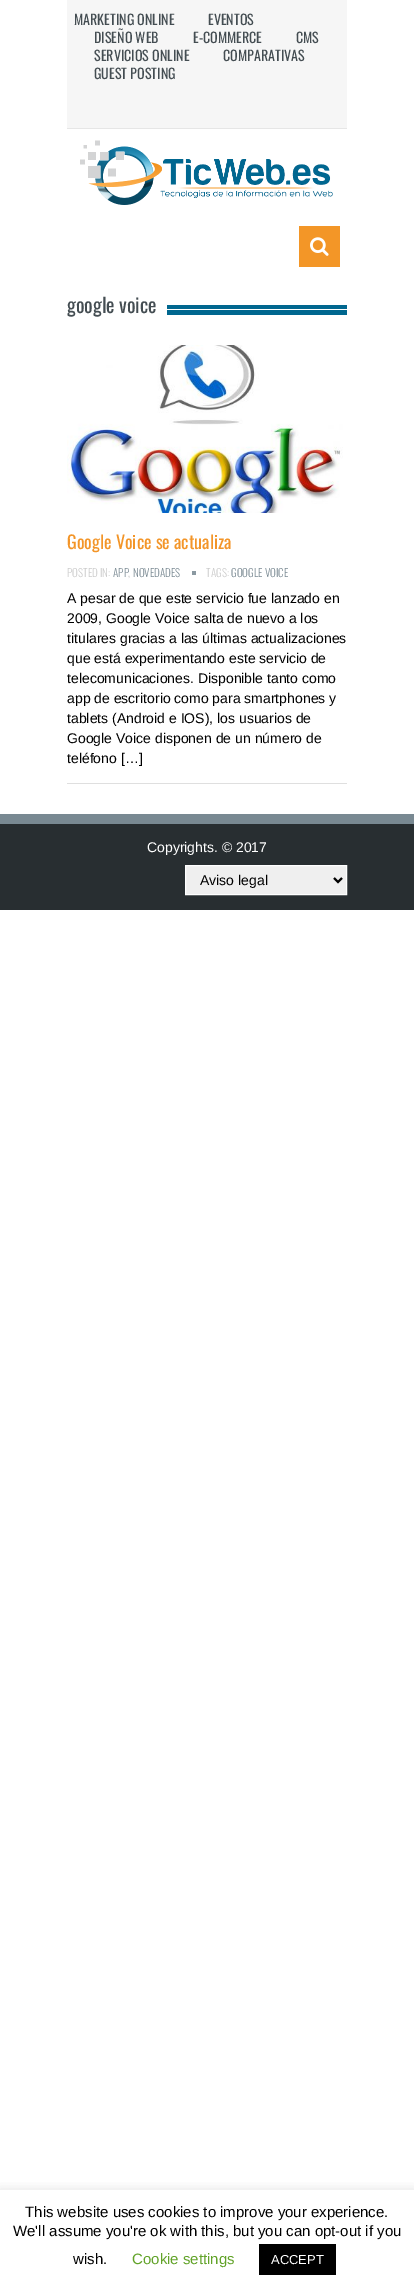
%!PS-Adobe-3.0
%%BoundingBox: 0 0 414 2292
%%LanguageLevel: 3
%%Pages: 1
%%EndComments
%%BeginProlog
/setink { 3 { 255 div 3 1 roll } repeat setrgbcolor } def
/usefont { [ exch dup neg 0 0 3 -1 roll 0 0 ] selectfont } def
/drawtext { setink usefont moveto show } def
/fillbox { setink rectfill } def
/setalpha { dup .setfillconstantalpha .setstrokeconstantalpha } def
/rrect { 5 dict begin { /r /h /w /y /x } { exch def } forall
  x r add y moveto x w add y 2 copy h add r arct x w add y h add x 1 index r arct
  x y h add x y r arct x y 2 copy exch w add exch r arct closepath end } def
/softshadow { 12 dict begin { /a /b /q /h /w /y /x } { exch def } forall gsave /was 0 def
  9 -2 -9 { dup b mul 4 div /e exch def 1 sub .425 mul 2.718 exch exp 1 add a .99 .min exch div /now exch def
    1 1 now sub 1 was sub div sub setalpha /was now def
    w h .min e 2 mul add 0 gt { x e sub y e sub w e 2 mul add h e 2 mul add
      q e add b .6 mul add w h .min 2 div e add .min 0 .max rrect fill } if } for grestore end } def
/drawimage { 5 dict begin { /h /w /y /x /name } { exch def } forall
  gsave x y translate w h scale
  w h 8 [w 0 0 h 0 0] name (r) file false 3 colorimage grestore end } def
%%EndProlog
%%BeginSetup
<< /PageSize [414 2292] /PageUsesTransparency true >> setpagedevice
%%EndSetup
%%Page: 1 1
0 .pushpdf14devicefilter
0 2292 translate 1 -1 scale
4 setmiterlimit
0 0 414 2292 255 255 255 fillbox
67 0 280 128 246 246 246 fillbox
67 128 280 1 230 230 230 fillbox
(MARKETING ONLINE) 74 25 /Oswald-Regular 14 68 77 82 drawtext
(EVENTOS) 208 25 /Oswald-Regular 14 68 77 82 drawtext
(DISEÑO WEB) 94 43 /Oswald-Regular 14 68 77 82 drawtext
(E-COMMERCE) 193 43 /Oswald-Regular 14 68 77 82 drawtext
(CMS) 296 43 /Oswald-Regular 14 68 77 82 drawtext
(SERVICIOS ONLINE) 94 61 /Oswald-Regular 14 68 77 82 drawtext
(COMPARATIVAS) 223 61 /Oswald-Regular 14 68 77 82 drawtext
(GUEST POSTING) 94 79 /Oswald-Regular 14 68 77 82 drawtext
(assets/img1.rgb) 80 140 253 65 drawimage
299 226 41 41 243 150 39 fillbox
(assets/img2.rgb) 310 237 19 19 drawimage
(google voice) 67 313 /Oswald-Regular 20 68 77 82 drawtext
167 305 180 10 0 103 143 fillbox
167 309 180 1 255 255 255 fillbox
67 783 280 1 223 223 223 fillbox
(assets/img3.rgb) 67 345 276 168 drawimage
(Google Voice se actualiza) 67 549 /Oswald-Regular 18 243 149 40 drawtext
(POSTED IN:) 67 577 /Oswald-Light 11 203 203 203 drawtext
(APP) 113 577 /Oswald-Light 11 121 137 146 drawtext
(,) 128 577 /Oswald-Light 11 203 203 203 drawtext
(NOVEDADES) 133 577 /Oswald-Light 11 121 137 146 drawtext
192 571 4 4 139 153 161 fillbox
(TAGS:) 206 577 /Oswald-Light 11 203 203 203 drawtext
(GOOGLE VOICE) 231 577 /Oswald-Light 11 121 137 146 drawtext
(A pesar de que este servicio fue lanzado en) 67 603 /LiberationSans-Regular 14 0 0 0 drawtext
(2009, Google Voice salta de nuevo a los) 67 623 /LiberationSans-Regular 14 0 0 0 drawtext
(titulares gracias a las últimas actualizaciones) 67 643 /LiberationSans-Regular 14 0 0 0 drawtext
(que está experimentando este servicio de) 67 663 /LiberationSans-Regular 14 0 0 0 drawtext
(telecomunicaciones. Disponible tanto como) 67 683 /LiberationSans-Regular 14 0 0 0 drawtext
(app de escritorio como para smartphones y) 67 703 /LiberationSans-Regular 14 0 0 0 drawtext
(tablets \(Android e IOS\), los usuarios de) 67 723 /LiberationSans-Regular 14 0 0 0 drawtext
(Google Voice disponen de un número de) 67 743 /LiberationSans-Regular 14 0 0 0 drawtext
(teléfono […]) 67 763 /LiberationSans-Regular 14 0 0 0 drawtext
0 814 414 10 121 137 146 fillbox
0 824 414 86 40 46 49 fillbox
(Copyrights. © 2017) 147 852 /LiberationSans-Regular 14 255 255 255 drawtext
239 239 239 setink
185.5 865.5 moveto 346.5 865.5 lineto 346.5 894.5 lineto 185.5 894.5 lineto closepath gsave fill grestore
255 255 255 setink
stroke
0 0 0 setink
2 setlinewidth
334 878 moveto 338 882 lineto 342 878 lineto stroke
(Aviso legal) 200 885 /LiberationSans-Regular 14 0 0 0 drawtext
gsave
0 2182 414 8 rectclip
172 171 171 setink
0 2189 414 102 0 5 0.3 softshadow
grestore
(This website uses cookies to improve your experience.) 25 2217 /LiberationSans-Regular 15 0 0 0 drawtext
(We'll assume you're ok with this, but you can opt-out if you) 13 2236 /LiberationSans-Regular 15 0 0 0 drawtext
(wish.) 73 2264 /LiberationSans-Regular 15 0 0 0 drawtext
(Cookie settings) 132 2264 /LiberationSans-Regular 15 98 163 41 drawtext
259 2244 77 31 0 0 0 fillbox
(ACCEPT) 271 2264 /LiberationSans-Regular 13 255 255 255 drawtext
.poppdf14devicefilter showpage
%%EOF
